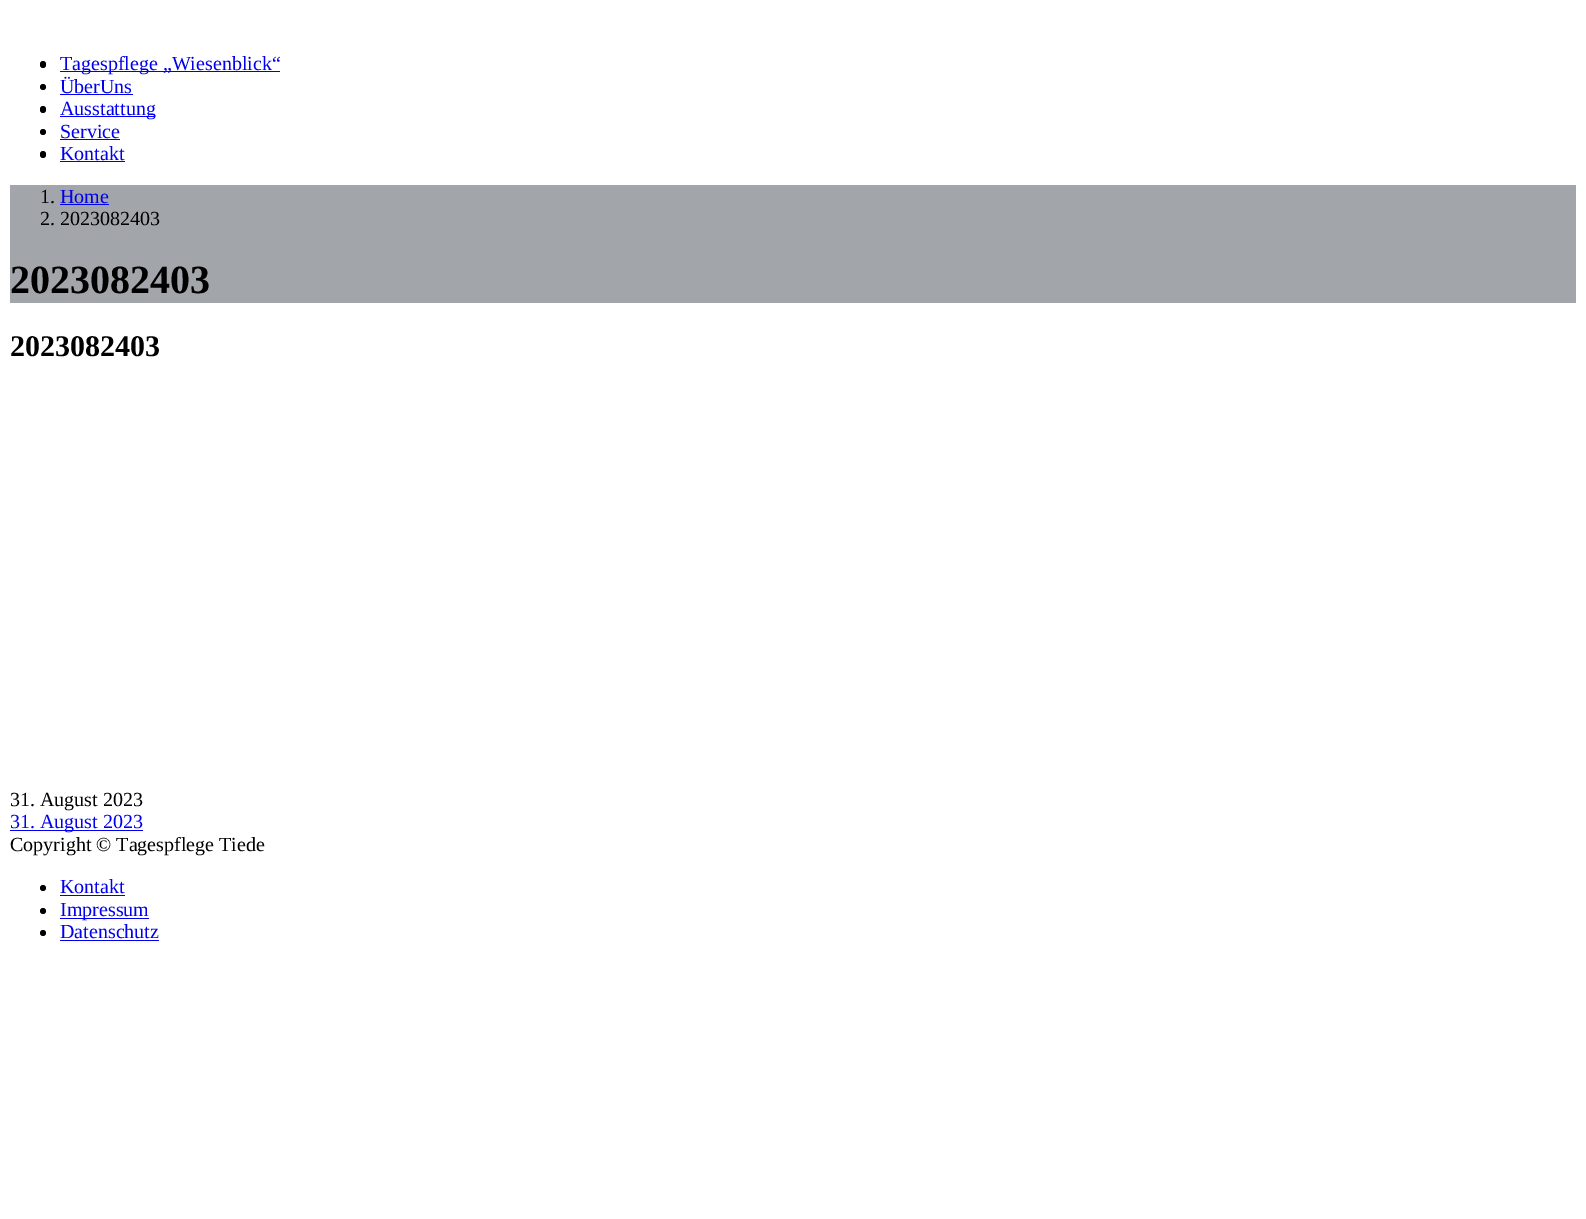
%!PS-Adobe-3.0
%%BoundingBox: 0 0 1586 1219
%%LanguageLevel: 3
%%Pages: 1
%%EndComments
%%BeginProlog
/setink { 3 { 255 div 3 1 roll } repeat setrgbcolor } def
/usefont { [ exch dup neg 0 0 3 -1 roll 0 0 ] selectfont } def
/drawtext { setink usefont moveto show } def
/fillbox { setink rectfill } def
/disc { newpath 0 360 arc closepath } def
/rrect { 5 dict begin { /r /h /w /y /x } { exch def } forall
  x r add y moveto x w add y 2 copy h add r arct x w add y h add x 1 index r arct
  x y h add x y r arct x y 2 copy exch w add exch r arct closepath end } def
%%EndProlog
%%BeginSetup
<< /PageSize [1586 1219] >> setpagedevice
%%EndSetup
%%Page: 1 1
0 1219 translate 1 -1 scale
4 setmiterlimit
0 0 1586 1219 255 255 255 fillbox
0 0 0 setink
40 61 6 7 3 rrect fill
60 71 220 1 0 0 238 fillbox
(Tagespflege „Wiesenblick“) 60 70 /LiberationSerif-Regular 20 0 0 238 drawtext
0 0 0 setink
43 87 3 disc fill
(ÜberUns) 60 93 /LiberationSerif-Regular 20 0 0 238 drawtext
60 94 73 1 0 0 238 fillbox
0 0 0 setink
40 106 6 7 3 rrect fill
60 116 95 1 0 0 238 fillbox
(Ausstattung) 60 115 /LiberationSerif-Regular 20 0 0 238 drawtext
0 0 0 setink
43 132 3 disc fill
(Service) 60 138 /LiberationSerif-Regular 20 0 0 238 drawtext
60 139 60 1 0 0 238 fillbox
0 0 0 setink
40 151 6 7 3 rrect fill
(Kontakt) 60 160 /LiberationSerif-Regular 20 0 0 238 drawtext
60 161 65 1 0 0 238 fillbox
10 185 1566 118 162 165 170 fillbox
(1.) 40 203 /LiberationSerif-Regular 20 0 0 0 drawtext
(Home) 60 203 /LiberationSerif-Regular 20 0 0 238 drawtext
60 204 49 1 0 0 238 fillbox
(2. 2023082403) 40 225 /LiberationSerif-Regular 20 0 0 0 drawtext
(2023082403) 10 293 /LiberationSerif-Bold 40 0 0 0 drawtext
(2023082403) 10 356 /LiberationSerif-Bold 30 0 0 0 drawtext
(31. August 2023) 10 806 /LiberationSerif-Regular 20 0 0 0 drawtext
10 830 133 1 0 0 238 fillbox
(31. August 2023) 10 828 /LiberationSerif-Regular 20 0 0 238 drawtext
(Copyright © Tagespflege Tiede) 10 851 /LiberationSerif-Regular 20 0 0 0 drawtext
43 888 3 disc fill
(Kontakt) 60 893 /LiberationSerif-Regular 20 0 0 238 drawtext
60 895 65 1 0 0 238 fillbox
0 0 0 setink
43 911 3 disc fill
60 918 89 1 0 0 238 fillbox
(Impressum) 60 916 /LiberationSerif-Regular 20 0 0 238 drawtext
0 0 0 setink
43 933 3 disc fill
(Datenschutz) 60 938 /LiberationSerif-Regular 20 0 0 238 drawtext
60 940 99 1 0 0 238 fillbox
showpage
%%EOF
